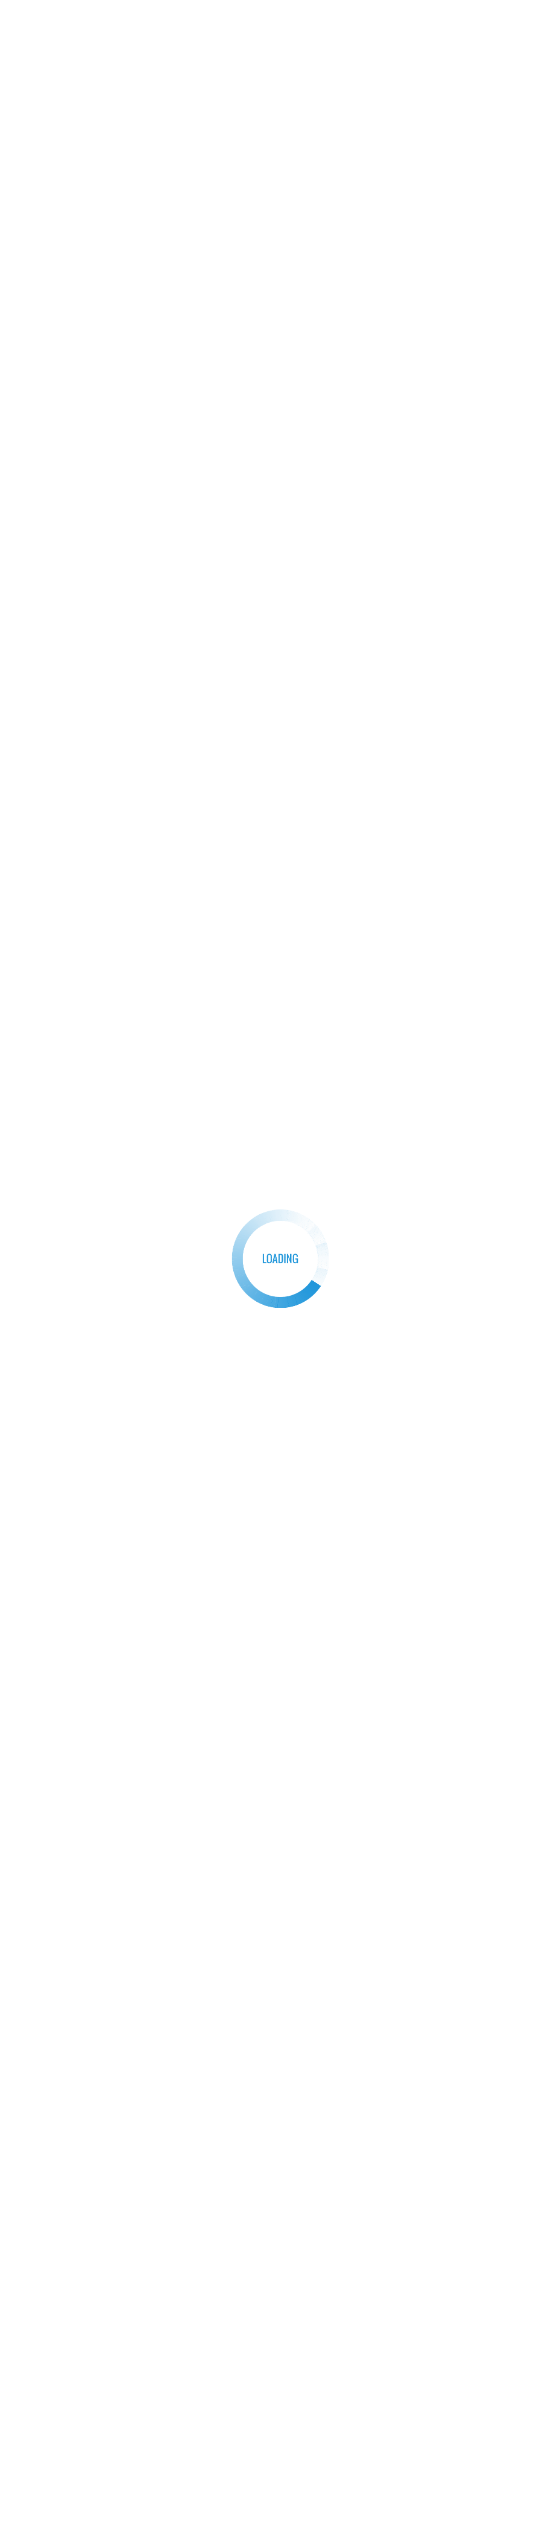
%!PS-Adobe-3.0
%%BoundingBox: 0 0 559 2521
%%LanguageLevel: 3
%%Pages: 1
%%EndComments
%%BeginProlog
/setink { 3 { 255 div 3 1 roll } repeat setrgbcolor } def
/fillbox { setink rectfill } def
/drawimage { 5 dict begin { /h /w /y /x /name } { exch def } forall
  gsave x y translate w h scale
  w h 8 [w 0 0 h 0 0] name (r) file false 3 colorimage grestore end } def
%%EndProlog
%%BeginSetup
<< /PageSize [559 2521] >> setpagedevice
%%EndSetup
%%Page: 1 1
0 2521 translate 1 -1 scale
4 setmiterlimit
0 0 559 2521 255 255 255 fillbox
(assets/img1.rgb) 231 1209 98 99 drawimage
showpage
%%EOF
